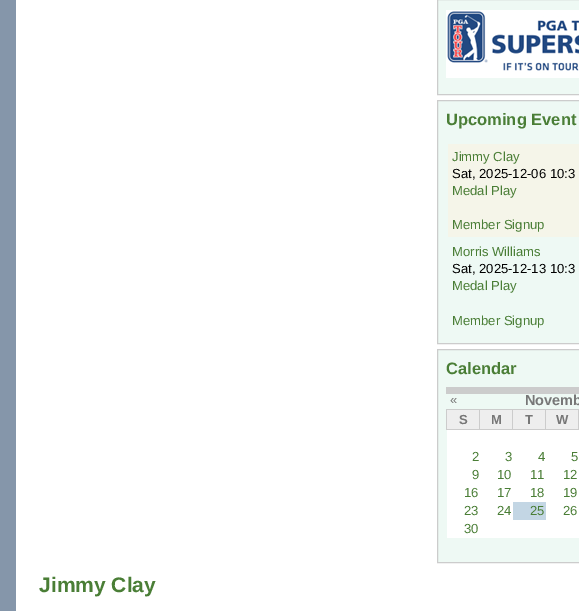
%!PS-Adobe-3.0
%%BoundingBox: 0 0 579 611
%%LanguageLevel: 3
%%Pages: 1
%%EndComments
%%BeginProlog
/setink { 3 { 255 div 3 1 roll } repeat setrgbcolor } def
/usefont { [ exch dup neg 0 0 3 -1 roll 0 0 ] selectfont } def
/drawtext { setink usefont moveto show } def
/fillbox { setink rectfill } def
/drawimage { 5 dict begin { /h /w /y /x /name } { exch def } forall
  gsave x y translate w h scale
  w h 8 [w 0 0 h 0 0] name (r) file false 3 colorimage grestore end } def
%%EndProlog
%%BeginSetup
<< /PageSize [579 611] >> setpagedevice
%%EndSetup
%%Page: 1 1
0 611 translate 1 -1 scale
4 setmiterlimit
0 0 579 611 133 150 170 fillbox
16 0 563 611 255 255 255 fillbox
238 249 244 setink
437.5 -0.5 moveto 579.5 -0.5 lineto 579.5 94.5 lineto 437.5 94.5 lineto closepath gsave fill grestore
204 204 204 setink
stroke
(assets/img1.rgb) 446 10 133 68 drawimage
238 249 244 setink
437.5 100.5 moveto 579.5 100.5 lineto 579.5 343.5 lineto 437.5 343.5 lineto closepath gsave fill grestore
204 204 204 setink
stroke
(Upcoming Event) 446 125 /LiberationSans-Bold 16.5 74 126 54 drawtext
448 144 131 93 245 245 233 fillbox
(Jimmy Clay) 452 161 /LiberationSans-Regular 13.1 74 126 54 drawtext
(Sat, 2025-12-06 10:3) 452 178 /LiberationSans-Regular 13.1 0 0 0 drawtext
(Medal Play) 452 195 /LiberationSans-Regular 13.1 74 126 54 drawtext
(Member Signup) 452 229 /LiberationSans-Regular 13.1 74 126 54 drawtext
(Morris Williams) 452 256 /LiberationSans-Regular 13.1 74 126 54 drawtext
(Sat, 2025-12-13 10:3) 452 273 /LiberationSans-Regular 13.1 0 0 0 drawtext
(Medal Play) 452 290 /LiberationSans-Regular 13.1 74 126 54 drawtext
(Member Signup) 452 325 /LiberationSans-Regular 13.1 74 126 54 drawtext
238 249 244 setink
437.5 349.5 moveto 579.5 349.5 lineto 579.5 562.5 lineto 437.5 562.5 lineto closepath gsave fill grestore
204 204 204 setink
stroke
(Calendar) 446 374 /LiberationSans-Bold 16.5 74 126 54 drawtext
446 387 133 7 204 204 204 fillbox
(«) 450 404 /LiberationSans-Regular 13.1 119 119 119 drawtext
(Novemb) 525 405 /LiberationSans-Bold 14.5 119 119 119 drawtext
447 410 32 19 238 238 238 fillbox
578 409 1 21 204 204 204 fillbox
545 409 34 1 204 204 204 fillbox
545 429 34 1 204 204 204 fillbox
545 409 1 21 204 204 204 fillbox
512 409 34 1 204 204 204 fillbox
512 429 34 1 204 204 204 fillbox
512 409 1 21 204 204 204 fillbox
479 409 34 1 204 204 204 fillbox
479 429 34 1 204 204 204 fillbox
479 409 1 21 204 204 204 fillbox
446 409 34 1 204 204 204 fillbox
446 429 34 1 204 204 204 fillbox
446 409 1 21 204 204 204 fillbox
(S) 459 424 /LiberationSans-Bold 13.1 119 119 119 drawtext
480 410 32 19 238 238 238 fillbox
(M) 491 424 /LiberationSans-Bold 13.1 119 119 119 drawtext
513 410 32 19 238 238 238 fillbox
(T) 525 424 /LiberationSans-Bold 13.1 119 119 119 drawtext
546 410 32 19 238 238 238 fillbox
(W) 556 424 /LiberationSans-Bold 13.1 119 119 119 drawtext
447 430 132 108 255 255 255 fillbox
(2) 472 461 /LiberationSans-Regular 13.1 74 126 54 drawtext
(3) 505 461 /LiberationSans-Regular 13.1 74 126 54 drawtext
(4) 538 461 /LiberationSans-Regular 13.1 74 126 54 drawtext
(5) 571 461 /LiberationSans-Regular 13.1 74 126 54 drawtext
(9) 472 479 /LiberationSans-Regular 13.1 74 126 54 drawtext
(10) 497 479 /LiberationSans-Regular 13.1 74 126 54 drawtext
(11) 530 479 /LiberationSans-Regular 13.1 74 126 54 drawtext
(12) 563 479 /LiberationSans-Regular 13.1 74 126 54 drawtext
(16) 464 497 /LiberationSans-Regular 13.1 74 126 54 drawtext
(17) 497 497 /LiberationSans-Regular 13.1 74 126 54 drawtext
(18) 530 497 /LiberationSans-Regular 13.1 74 126 54 drawtext
(19) 563 497 /LiberationSans-Regular 13.1 74 126 54 drawtext
(23) 464 515 /LiberationSans-Regular 13.1 74 126 54 drawtext
(24) 497 515 /LiberationSans-Regular 13.1 74 126 54 drawtext
513 502 33 18 195 214 228 fillbox
(25) 530 515 /LiberationSans-Regular 13.1 74 126 54 drawtext
(26) 563 515 /LiberationSans-Regular 13.1 74 126 54 drawtext
(30) 464 533 /LiberationSans-Regular 13.1 74 126 54 drawtext
(Jimmy Clay) 39 592 /LiberationSans-Bold 21 74 126 54 drawtext
showpage
%%EOF
